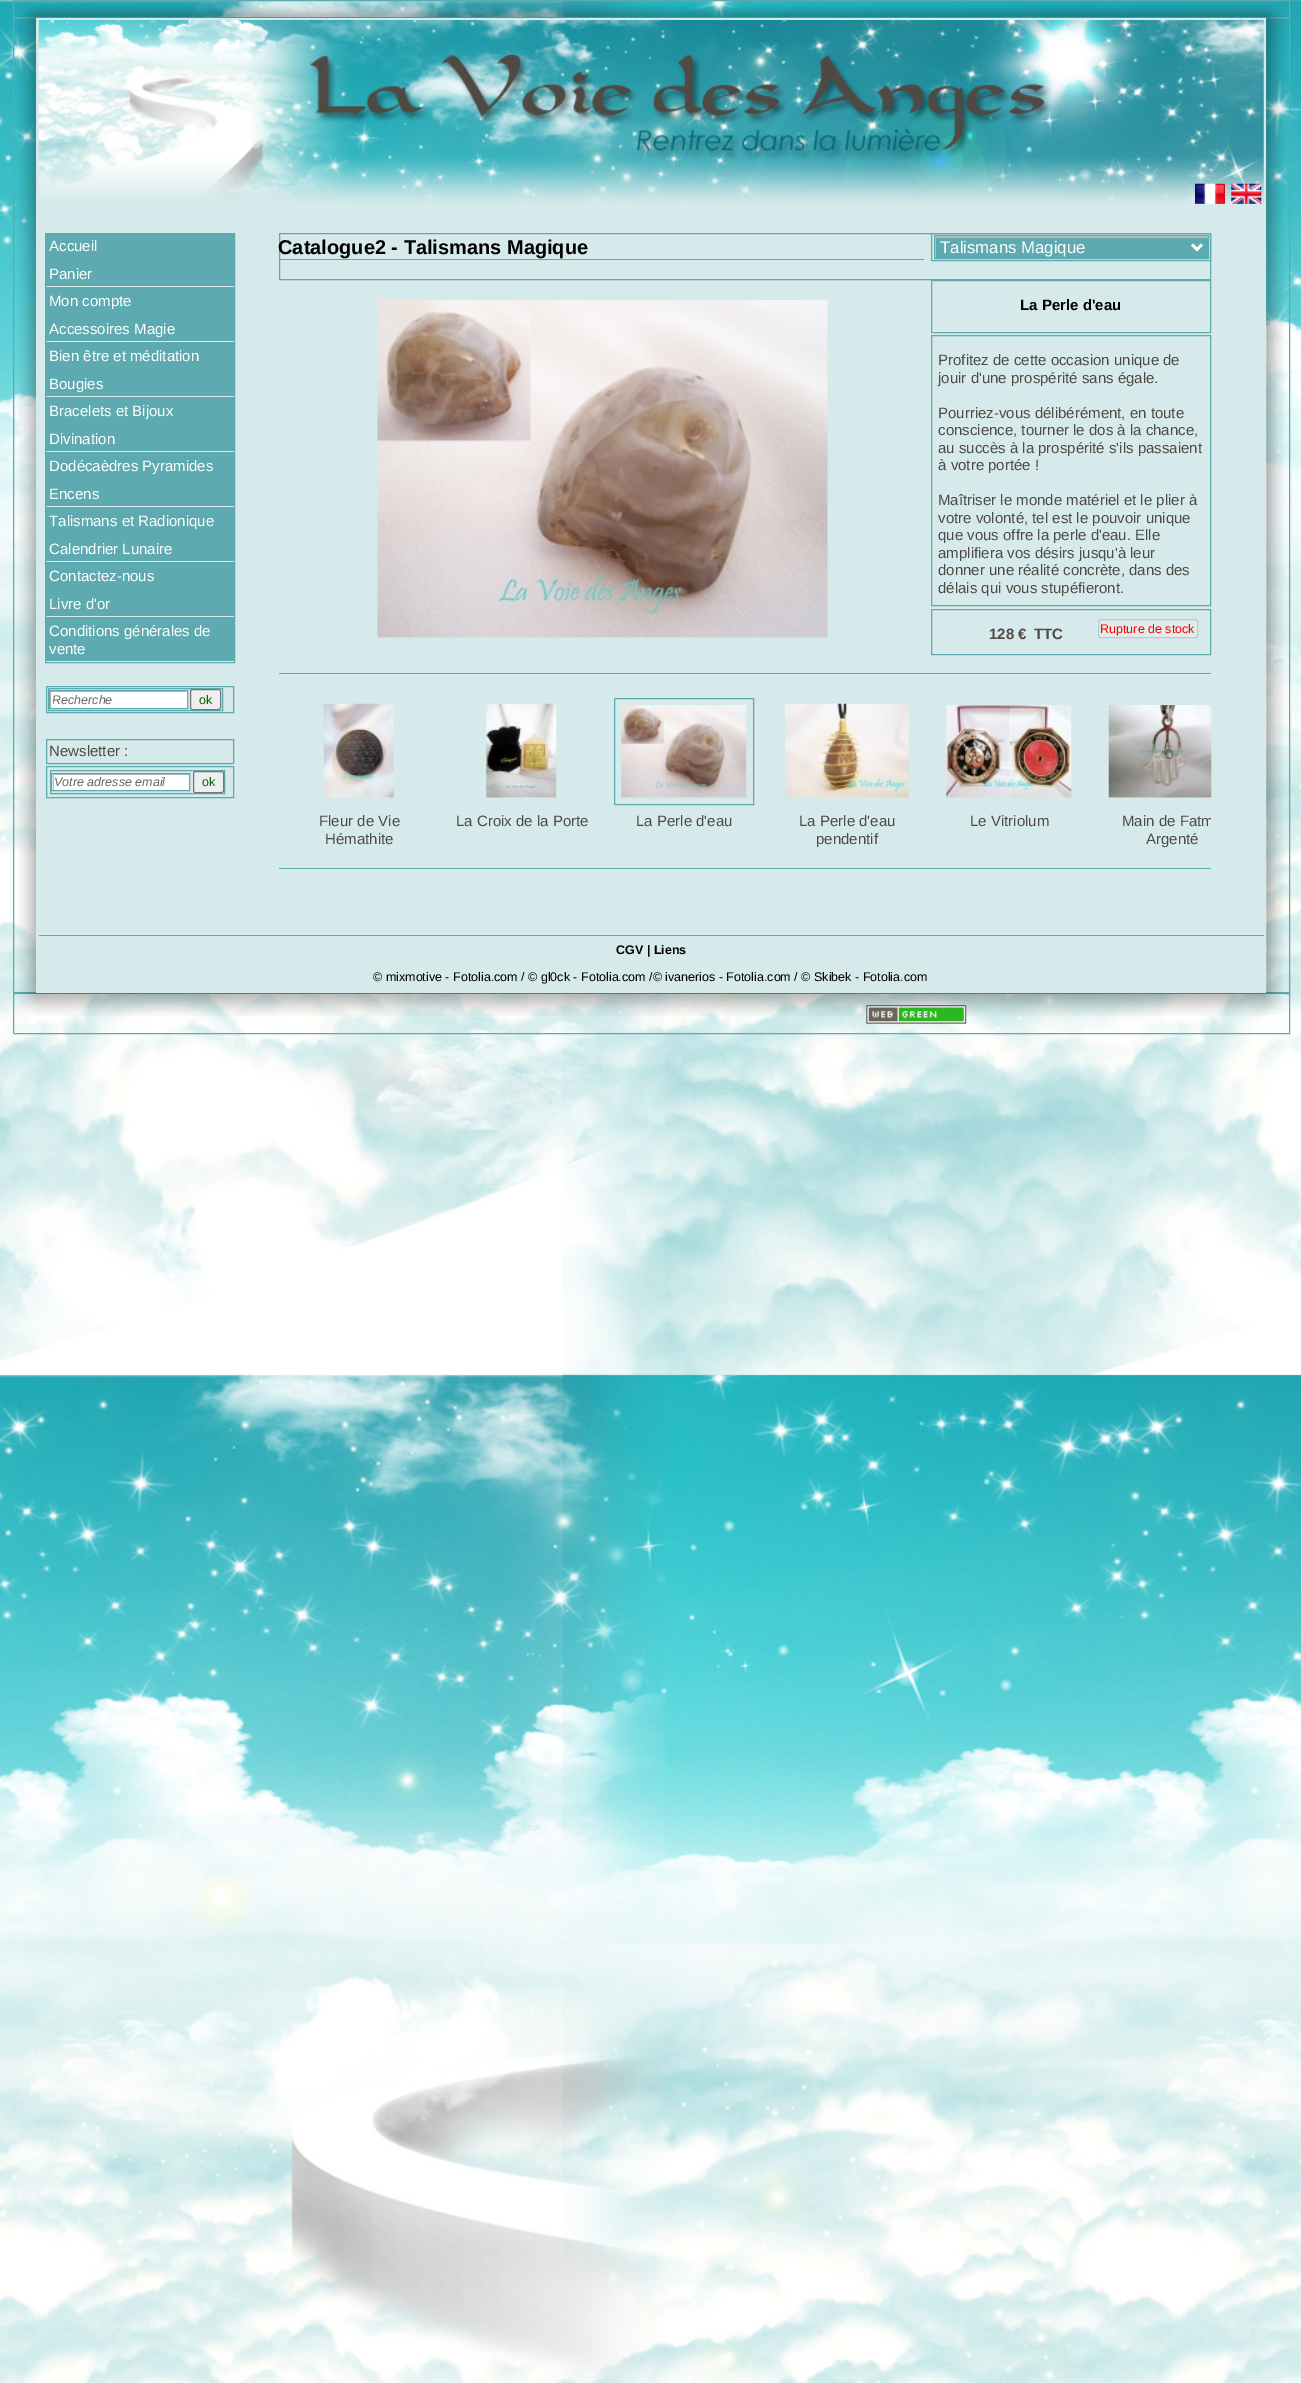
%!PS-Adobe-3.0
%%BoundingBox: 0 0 1301 2383
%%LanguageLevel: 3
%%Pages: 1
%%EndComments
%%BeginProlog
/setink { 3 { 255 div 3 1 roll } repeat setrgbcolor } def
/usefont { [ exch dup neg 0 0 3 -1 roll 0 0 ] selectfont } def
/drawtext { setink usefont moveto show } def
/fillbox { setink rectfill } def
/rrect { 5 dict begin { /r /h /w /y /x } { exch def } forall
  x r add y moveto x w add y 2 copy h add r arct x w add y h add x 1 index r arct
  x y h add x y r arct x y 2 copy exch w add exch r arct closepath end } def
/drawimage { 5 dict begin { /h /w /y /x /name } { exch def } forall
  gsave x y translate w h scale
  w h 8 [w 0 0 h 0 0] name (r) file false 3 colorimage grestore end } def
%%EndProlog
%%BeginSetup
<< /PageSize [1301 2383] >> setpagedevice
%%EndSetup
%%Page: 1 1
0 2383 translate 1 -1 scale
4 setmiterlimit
0 0 1301 2383 255 255 255 fillbox
(assets/img1.rgb) 0 0 1301 2383 drawimage
93 170 176 setink
13.5 0.5 1276 17 rectstroke
(assets/img3.rgb) 36 4 1231 14 drawimage
13.5 18.5 1276 974 rectstroke
(assets/img5.rgb) 18 17 19 976 drawimage
(assets/img2.rgb) 19 4 18 14 drawimage
(assets/img16.rgb) 1266 17 18 976 drawimage
(assets/img4.rgb) 1266 4 18 14 drawimage
13.5 993.5 1276 40 rectstroke
(assets/img18.rgb) 36 992 1231 24 drawimage
(assets/img17.rgb) 18 992 19 24 drawimage
36 18 1230 975 214 234 235 fillbox
(assets/img6.rgb) 38 20 1226 184 drawimage
(assets/img7.rgb) 1195 183 30 21 drawimage
(assets/img8.rgb) 1231 183 31 21 drawimage
93 170 176 setink
45.5 233.5 189 26 rectstroke
46 234 188 25 93 170 176 fillbox
(Accueil) 49 251 /LiberationSans-Regular 15 255 255 255 drawtext
93 170 176 setink
45.5 260.5 189 27 rectstroke
46 261 188 25 93 170 176 fillbox
(Panier) 49 279 /LiberationSans-Regular 15 255 255 255 drawtext
93 170 176 setink
45.5 288.5 189 26 rectstroke
46 289 188 25 93 170 176 fillbox
(Mon compte) 49 306 /LiberationSans-Regular 15 255 255 255 drawtext
93 170 176 setink
45.5 315.5 189 27 rectstroke
46 316 188 25 93 170 176 fillbox
(Accessoires Magie) 49 334 /LiberationSans-Regular 15 255 255 255 drawtext
93 170 176 setink
45.5 343.5 189 26 rectstroke
46 344 188 25 93 170 176 fillbox
(Bien être et méditation) 49 361 /LiberationSans-Regular 15 255 255 255 drawtext
93 170 176 setink
45.5 370.5 189 27 rectstroke
46 371 188 25 93 170 176 fillbox
(Bougies) 49 389 /LiberationSans-Regular 15 255 255 255 drawtext
93 170 176 setink
45.5 398.5 189 26 rectstroke
46 399 188 25 93 170 176 fillbox
(Bracelets et Bijoux) 49 416 /LiberationSans-Regular 15 255 255 255 drawtext
93 170 176 setink
45.5 425.5 189 27 rectstroke
46 426 188 25 93 170 176 fillbox
(Divination) 49 444 /LiberationSans-Regular 15 255 255 255 drawtext
93 170 176 setink
45.5 453.5 189 26 rectstroke
46 454 188 25 93 170 176 fillbox
(Dodécaèdres Pyramides) 49 471 /LiberationSans-Regular 15 255 255 255 drawtext
93 170 176 setink
45.5 480.5 189 27 rectstroke
46 481 188 25 93 170 176 fillbox
(Encens) 49 499 /LiberationSans-Regular 15 255 255 255 drawtext
93 170 176 setink
45.5 508.5 189 26 rectstroke
46 509 188 25 93 170 176 fillbox
(Talismans et Radionique) 49 526 /LiberationSans-Regular 15 255 255 255 drawtext
93 170 176 setink
45.5 535.5 189 27 rectstroke
46 536 188 25 93 170 176 fillbox
(Calendrier Lunaire) 49 554 /LiberationSans-Regular 15 255 255 255 drawtext
93 170 176 setink
45.5 563.5 189 26 rectstroke
46 564 188 25 93 170 176 fillbox
(Contactez-nous) 49 581 /LiberationSans-Regular 15 255 255 255 drawtext
93 170 176 setink
45.5 590.5 189 27 rectstroke
46 591 188 25 93 170 176 fillbox
(Livre d'or) 49 609 /LiberationSans-Regular 15 255 255 255 drawtext
93 170 176 setink
45.5 618.5 189 44 rectstroke
46 619 188 42 93 170 176 fillbox
(Conditions générales de) 49 636 /LiberationSans-Regular 15 255 255 255 drawtext
(vente) 49 654 /LiberationSans-Regular 15 255 255 255 drawtext
93 170 176 setink
46.5 686.5 187 26 rectstroke
48.5 688.5 174 22 rectstroke
51 691 136 17 255 255 255 fillbox
gsave
50 691 136 17 rectclip
187 187 187 setink
-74 568 moveto 310 568 lineto 310 831 lineto -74 831 lineto closepath 51 692 moveto 188 692 lineto 188 709 lineto 51 709 lineto closepath eofill
grestore
93 170 176 setink
49.5 690.5 138 18 rectstroke
gsave
53 693 131 13 rectclip
(Recherche) 52 704 /LiberationSans-Italic 12.5 102 102 102 drawtext
grestore
239 239 239 setink
190.5 689.5 30 20 2 rrect gsave fill grestore
118 118 118 setink
stroke
(ok) 199 704 /LiberationSans-Regular 12.5 0 102 0 drawtext
93 170 176 setink
46.5 739.5 187 24 rectstroke
(Newsletter :) 49 756 /LiberationSans-Regular 15 79 74 68 drawtext
93 170 176 setink
46.5 766.5 187 31 rectstroke
50.5 770.5 174 23 rectstroke
52 774 137 16 255 255 255 fillbox
gsave
53 774 136 16 rectclip
187 187 187 setink
-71 650 moveto 312 650 lineto 312 914 lineto -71 914 lineto closepath 54 775 moveto 190 775 lineto 190 791 lineto 54 791 lineto closepath eofill
grestore
93 170 176 setink
51.5 773.5 138 17 rectstroke
(Votre adresse email) 54 786 /LiberationSans-Italic 12.5 102 102 102 drawtext
239 239 239 setink
193.5 771.5 30 21 2 rrect gsave fill grestore
118 118 118 setink
stroke
(ok) 202 786 /LiberationSans-Regular 12.5 0 102 0 drawtext
93 170 176 setink
279.5 233.5 931 46 rectstroke
279 259 645 1 93 170 176 fillbox
(Catalogue2 - Talismans Magique) 278 254 /LiberationSans-Bold 20 0 0 0 drawtext
93 170 176 setink
931.5 233.5 279 27 rectstroke
934.5 235.5 274 23 rectstroke
936 238 272 20 93 170 176 fillbox
gsave
935 236 273 22 rectclip
187 187 187 setink
811 112 moveto 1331 112 lineto 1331 381 lineto 811 381 lineto closepath 936 238 moveto 1209 238 lineto 1209 259 lineto 936 259 lineto closepath eofill
grestore
255 255 255 setink
2.5 setlinewidth
1192 244.5 moveto 1197 249.5 lineto 1202 244.5 lineto stroke
(Talismans Magique) 940 253 /LiberationSans-Regular 16.75 255 255 255 drawtext
(assets/img9.rgb) 377 300 451 338 drawimage
93 170 176 setink
1 setlinewidth
931.5 280.5 279 52 rectstroke
(La Perle d'eau) 1020 310 /LiberationSans-Bold 15 0 0 0 drawtext
93 170 176 setink
931.5 335.5 279 270 rectstroke
(Profitez de cette occasion unique de) 938 365 /LiberationSans-Regular 15 79 74 68 drawtext
(jouir d'une prospérité sans égale.) 938 383 /LiberationSans-Regular 15 79 74 68 drawtext
(Pourriez-vous délibérément, en toute) 938 418 /LiberationSans-Regular 15 79 74 68 drawtext
(conscience, tourner le dos à la chance,) 938 435 /LiberationSans-Regular 15 79 74 68 drawtext
(au succès à la prospérité s'ils passaient) 938 453 /LiberationSans-Regular 15 79 74 68 drawtext
(à votre portée !) 938 470 /LiberationSans-Regular 15 79 74 68 drawtext
(Maîtriser le monde matériel et le plier à) 938 505 /LiberationSans-Regular 15 79 74 68 drawtext
(votre volonté, tel est le pouvoir unique) 938 523 /LiberationSans-Regular 15 79 74 68 drawtext
(que vous offre la perle d'eau. Elle) 938 540 /LiberationSans-Regular 15 79 74 68 drawtext
(amplifiera vos désirs jusqu'à leur) 938 558 /LiberationSans-Regular 15 79 74 68 drawtext
(donner une réalité concrète, dans des) 938 575 /LiberationSans-Regular 15 79 74 68 drawtext
(délais qui vous stupéfieront.) 938 593 /LiberationSans-Regular 15 79 74 68 drawtext
93 170 176 setink
931.5 609.5 279 45 rectstroke
(128 €) 989 639 /LiberationSans-Bold 15 79 74 68 drawtext
(TTC) 1034 639 /LiberationSans-Bold 15 79 74 68 drawtext
222 236 236 setink
1098.5 619.5 99 18 2 rrect gsave fill grestore
191 201 201 setink
stroke
(Rupture de stock) 1100 633 /LiberationSans-Regular 12.5 255 0 0 drawtext
279 673 932 1 93 170 176 fillbox
(assets/img10.rgb) 323 703 71 95 drawimage
(Fleur de Vie) 319 826 /LiberationSans-Regular 15 79 74 68 drawtext
(Hémathite) 325 844 /LiberationSans-Regular 15 79 74 68 drawtext
(assets/img11.rgb) 486 703 71 95 drawimage
(La Croix de la Porte) 456 826 /LiberationSans-Regular 15 79 74 68 drawtext
93 170 176 setink
614.5 698.5 139 106 rectstroke
(assets/img12.rgb) 621 705 126 93 drawimage
(La Perle d'eau) 636 826 /LiberationSans-Regular 15 79 74 68 drawtext
(assets/img13.rgb) 785 703 124 95 drawimage
(La Perle d'eau) 799 826 /LiberationSans-Regular 15 79 74 68 drawtext
(pendentif) 816 844 /LiberationSans-Regular 15 79 74 68 drawtext
(assets/img14.rgb) 946 705 126 93 drawimage
(Le Vitriolum) 970 826 /LiberationSans-Regular 15 79 74 68 drawtext
(assets/img15.rgb) 1108 705 104 93 drawimage
gsave
279 681 932 179 rectclip
(Main de Fatm) 1122 826 /LiberationSans-Regular 15 79 74 68 drawtext
grestore
(Argenté) 1146 844 /LiberationSans-Regular 15 79 74 68 drawtext
279 868 932 1 93 170 176 fillbox
39 935 1225 1 93 170 176 fillbox
(CGV | Liens) 616 954 /LiberationSans-Bold 12.5 0 0 0 drawtext
(© mixmotive - Fotolia.com / © gl0ck - Fotolia.com /© ivanerios - Fotolia.com / © Skibek - Fotolia.com) 373 981 /LiberationSans-Regular 12.5 0 0 0 drawtext
(assets/img19.rgb) 866 1005 101 19 drawimage
(assets/img20.rgb) 1266 992 18 23 drawimage
showpage
%%EOF
